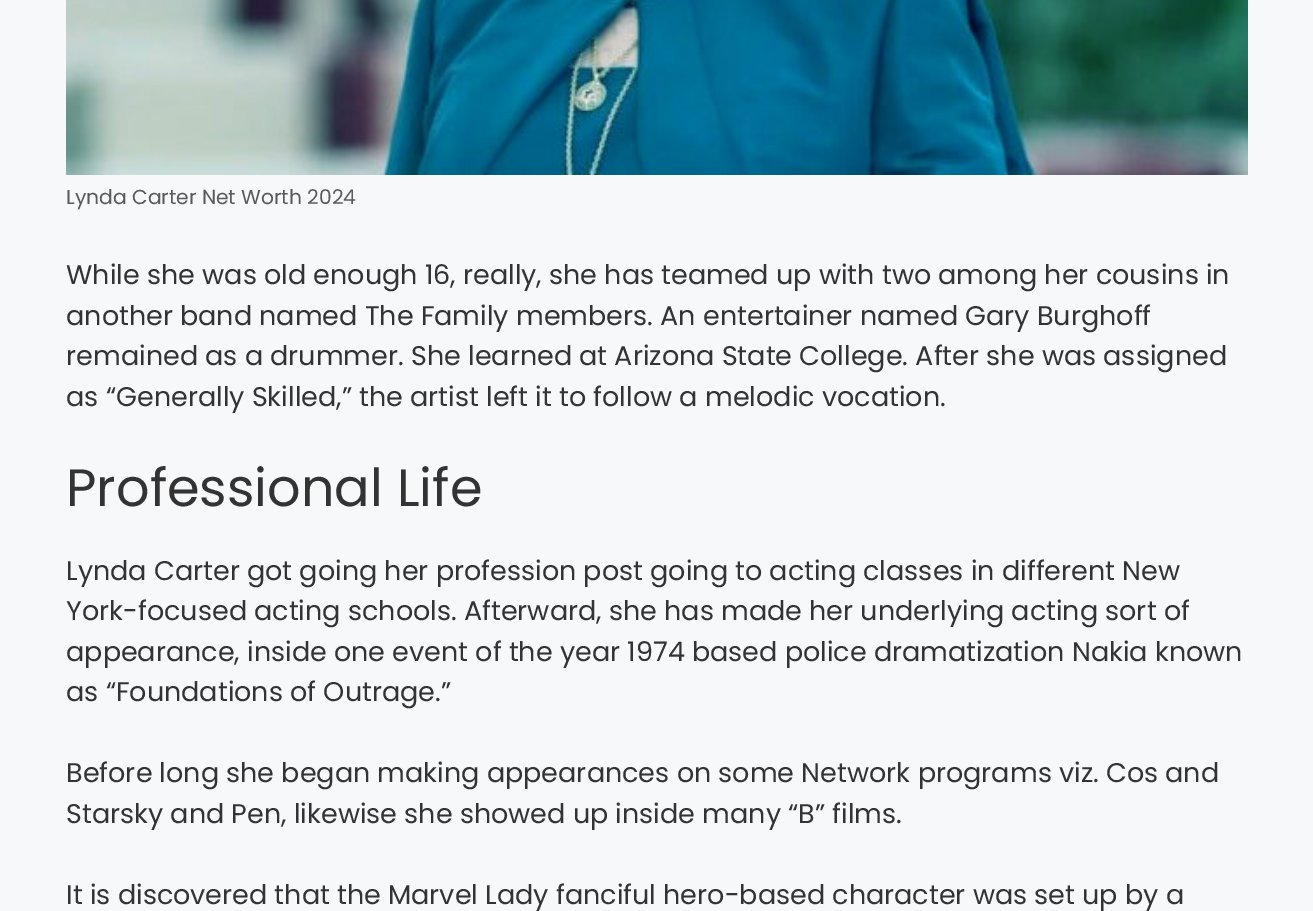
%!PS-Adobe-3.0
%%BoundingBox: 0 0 1313 911
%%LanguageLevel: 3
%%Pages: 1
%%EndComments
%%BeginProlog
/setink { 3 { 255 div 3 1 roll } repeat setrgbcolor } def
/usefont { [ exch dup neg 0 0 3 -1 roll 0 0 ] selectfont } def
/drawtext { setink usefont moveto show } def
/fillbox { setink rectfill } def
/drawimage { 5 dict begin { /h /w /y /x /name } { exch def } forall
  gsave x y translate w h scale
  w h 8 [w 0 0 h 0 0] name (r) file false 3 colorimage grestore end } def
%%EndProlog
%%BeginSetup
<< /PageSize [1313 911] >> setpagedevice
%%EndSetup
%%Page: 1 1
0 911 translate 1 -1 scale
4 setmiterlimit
0 0 1313 911 247 248 249 fillbox
(assets/img1.rgb) 66 0 1182 175 drawimage
(Lynda Carter Net Worth 2024) 66 204 /Poppins-Regular 20.25 90 90 91 drawtext
(While she was old enough 16, really, she has teamed up with two among her cousins in) 66 284 /Poppins-Regular 27 51 51 51 drawtext
(another band named The Family members. An entertainer named Gary Burghoff) 66 325 /Poppins-Regular 27 51 51 51 drawtext
(remained as a drummer. She learned at Arizona State College. After she was assigned) 66 365 /Poppins-Regular 27 51 51 51 drawtext
(as “Generally Skilled,” the artist left it to follow a melodic vocation.) 66 406 /Poppins-Regular 27 51 51 51 drawtext
(Professional Life) 66 506 /Poppins-Regular 52.5 51 51 51 drawtext
(Lynda Carter got going her profession post going to acting classes in different New) 66 580 /Poppins-Regular 27 51 51 51 drawtext
(York-focused acting schools. Afterward, she has made her underlying acting sort of) 66 620 /Poppins-Regular 27 51 51 51 drawtext
(appearance, inside one event of the year 1974 based police dramatization Nakia known) 66 661 /Poppins-Regular 27 51 51 51 drawtext
(as “Foundations of Outrage.”) 66 701 /Poppins-Regular 27 51 51 51 drawtext
(Before long she began making appearances on some Network programs viz. Cos and) 66 782 /Poppins-Regular 27 51 51 51 drawtext
(Starsky and Pen, likewise she showed up inside many “B” films.) 66 823 /Poppins-Regular 27 51 51 51 drawtext
(It is discovered that the Marvel Lady fanciful hero-based character was set up by a) 66 904 /Poppins-Regular 27 51 51 51 drawtext
showpage
%%EOF
